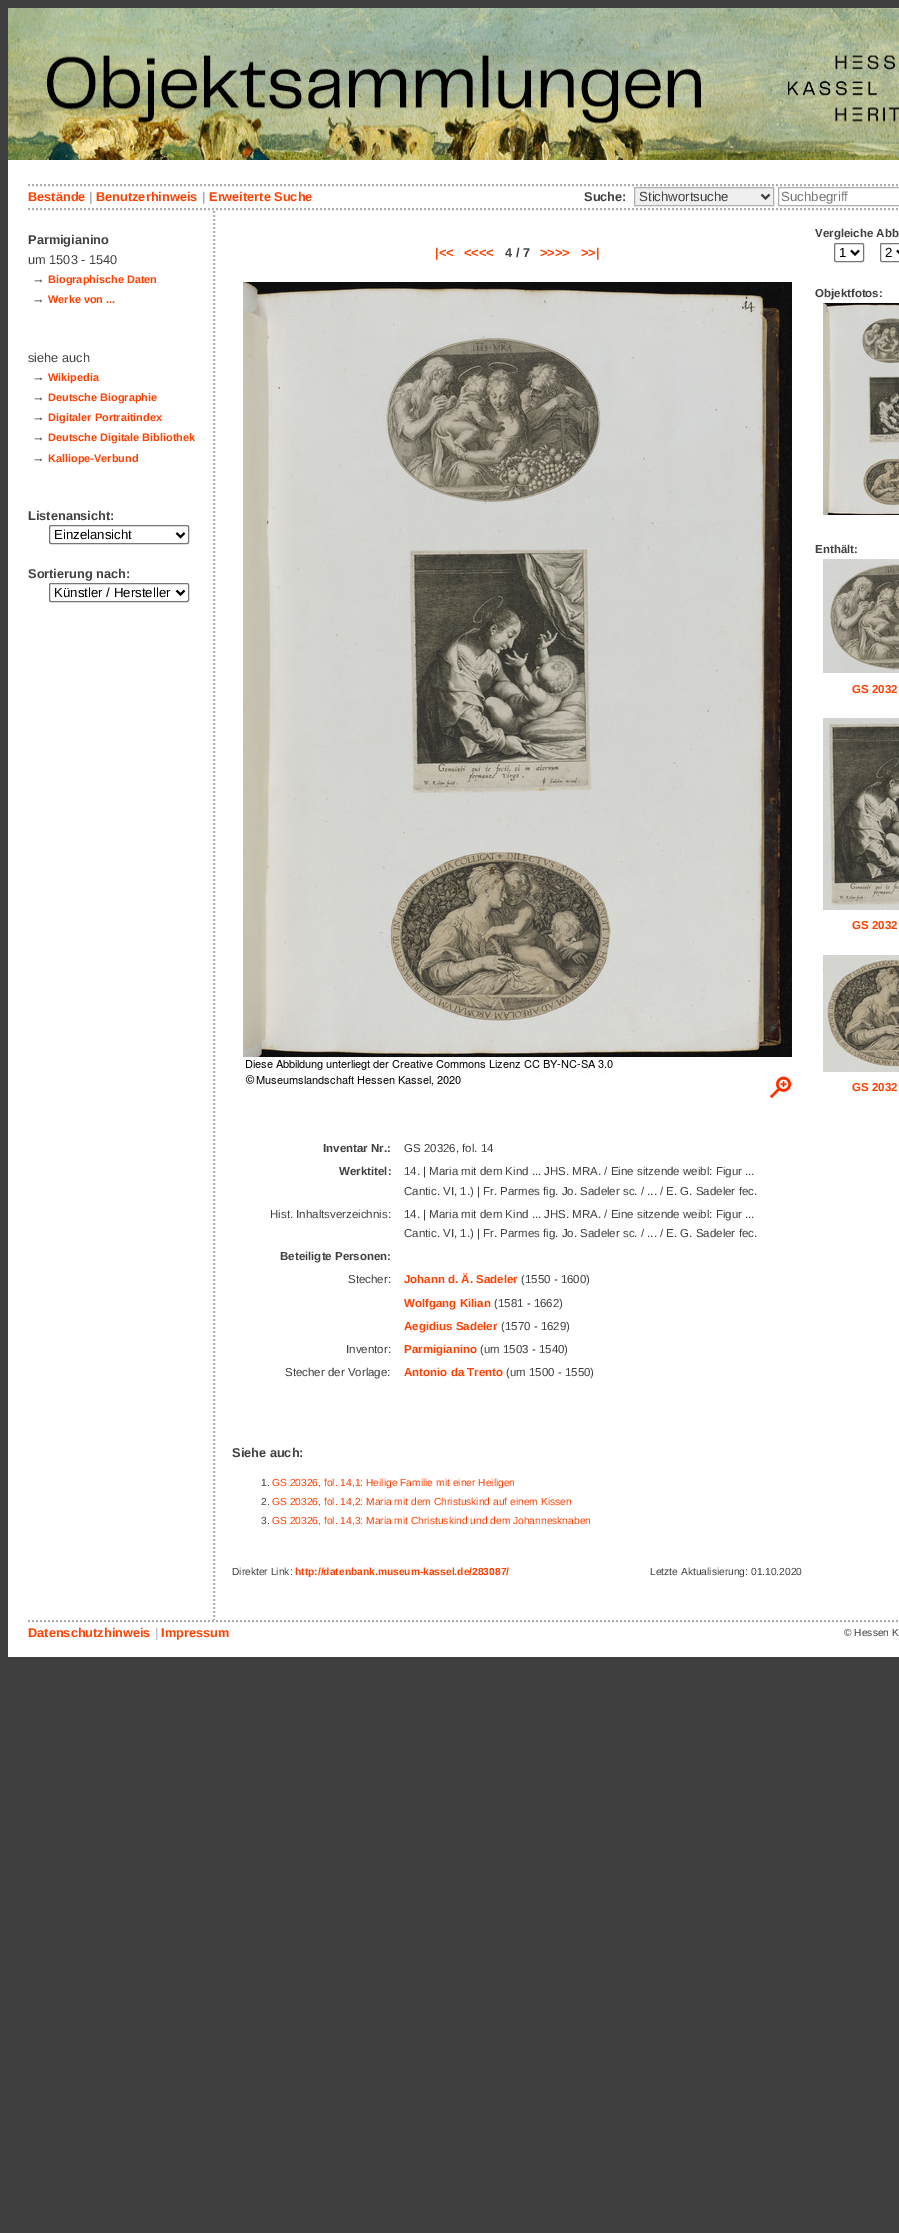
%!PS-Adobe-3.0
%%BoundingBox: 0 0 899 2233
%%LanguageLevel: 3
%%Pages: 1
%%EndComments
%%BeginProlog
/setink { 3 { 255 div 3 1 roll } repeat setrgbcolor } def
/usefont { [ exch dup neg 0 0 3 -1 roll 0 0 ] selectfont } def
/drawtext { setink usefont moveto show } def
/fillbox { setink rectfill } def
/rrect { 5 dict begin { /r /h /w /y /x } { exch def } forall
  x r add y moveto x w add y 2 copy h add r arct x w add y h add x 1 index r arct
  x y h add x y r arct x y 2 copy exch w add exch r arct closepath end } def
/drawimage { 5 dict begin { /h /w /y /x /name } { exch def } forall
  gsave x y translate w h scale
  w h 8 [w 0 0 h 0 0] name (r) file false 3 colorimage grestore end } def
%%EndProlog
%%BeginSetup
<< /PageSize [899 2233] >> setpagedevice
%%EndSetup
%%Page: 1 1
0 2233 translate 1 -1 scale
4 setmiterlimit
0 0 899 2233 63 63 63 fillbox
8 160 891 1497 255 255 255 fillbox
(assets/img1.rgb) 8 8 891 152 drawimage
175 175 175 setink
2 setlinewidth
[2 2] 0 setdash
28 185 moveto 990 185 lineto stroke
(Bestände) 28 201 /LiberationSans-Bold 12.75 255 64 0 drawtext
(|) 89 201 /LiberationSans-Bold 12.75 175 175 175 drawtext
(Benutzerhinweis) 96 201 /LiberationSans-Bold 12.75 255 64 0 drawtext
(|) 202 201 /LiberationSans-Bold 12.75 175 175 175 drawtext
(Erweiterte Suche) 209 201 /LiberationSans-Bold 12.75 255 64 0 drawtext
(Suche:) 584 201 /LiberationSans-Bold 12.75 63 63 63 drawtext
239 239 239 setink
634.5 187.5 moveto 773.5 187.5 lineto 773.5 205.5 lineto 634.5 205.5 lineto closepath gsave fill grestore
175 175 175 setink
1 setlinewidth
[] 0 setdash
stroke
63 63 63 setink
2 setlinewidth
761.5 194.5 moveto 765.5 198.5 lineto 769.5 194.5 lineto stroke
(Stichwortsuche) 639 201 /LiberationSans-Regular 13.25 63 63 63 drawtext
175 175 175 setink
1 setlinewidth
778.5 187.5 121 18 rectstroke
(Suchbegriff) 781 201 /LiberationSans-Regular 13.25 117 117 117 drawtext
175 175 175 setink
2 setlinewidth
[2 2] 0 setdash
28 209 moveto 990 209 lineto stroke
(Parmigianino) 28 244 /LiberationSans-Bold 12.75 63 63 63 drawtext
(um 1503 - 1540) 28 264 /LiberationSans-Regular 12.75 63 63 63 drawtext
(→) 32 283 /LiberationSans-Bold 12.75 63 63 63 drawtext
(Biographische Daten) 48 283 /LiberationSans-Bold 10.9 255 64 0 drawtext
(→) 32 303 /LiberationSans-Bold 12.75 63 63 63 drawtext
(Werke von ...) 48 303 /LiberationSans-Bold 10.9 255 64 0 drawtext
(siehe auch) 28 362 /LiberationSans-Regular 12.75 63 63 63 drawtext
(→) 32 381 /LiberationSans-Bold 12.75 63 63 63 drawtext
(Wikipedia) 48 381 /LiberationSans-Bold 10.9 255 64 0 drawtext
(→) 32 401 /LiberationSans-Bold 12.75 63 63 63 drawtext
(Deutsche Biographie) 48 401 /LiberationSans-Bold 10.9 255 64 0 drawtext
(→) 32 421 /LiberationSans-Bold 12.75 63 63 63 drawtext
(Digitaler Portraitindex) 48 421 /LiberationSans-Bold 10.9 255 64 0 drawtext
(→) 32 441 /LiberationSans-Bold 12.75 63 63 63 drawtext
(Deutsche Digitale Bibliothek) 48 441 /LiberationSans-Bold 10.9 255 64 0 drawtext
(→) 32 462 /LiberationSans-Bold 12.75 63 63 63 drawtext
(Kalliope-Verbund) 48 462 /LiberationSans-Bold 10.9 255 64 0 drawtext
(Listenansicht:) 28 520 /LiberationSans-Bold 12.75 63 63 63 drawtext
118 118 118 setink
1 setlinewidth
[] 0 setdash
49.5 525.5 139 18 1.5 rrect stroke
0 0 0 setink
2 setlinewidth
176.5 533 moveto 180.5 537 lineto 184.5 533 lineto stroke
(Einzelansicht) 54 539 /LiberationSans-Regular 13.25 0 0 0 drawtext
(Sortierung nach:) 28 578 /LiberationSans-Bold 12.75 63 63 63 drawtext
118 118 118 setink
1 setlinewidth
49.5 583.5 139 18 1.5 rrect stroke
0 0 0 setink
2 setlinewidth
176.5 590.5 moveto 180.5 594.5 lineto 184.5 590.5 lineto stroke
(Künstler / Hersteller) 54 597 /LiberationSans-Regular 13.25 0 0 0 drawtext
175 175 175 setink
[2 2] 0 setdash
214 211 moveto 214 1620 lineto stroke
(|<<) 435 257 /LiberationSans-Bold 12.75 255 64 0 drawtext
(<<<<) 464 257 /LiberationSans-Bold 12.75 255 64 0 drawtext
(4 / 7) 505 257 /LiberationSans-Bold 12.75 63 63 63 drawtext
(>>>>) 540 257 /LiberationSans-Bold 12.75 255 64 0 drawtext
(>>|) 581 257 /LiberationSans-Bold 12.75 255 64 0 drawtext
(assets/img2.rgb) 243 282 549 807 drawimage
(assets/img3.rgb) 769 1076 23 23 drawimage
(Inventar Nr.:) 323 1152 /LiberationSans-Bold 11.5 63 63 63 drawtext
(GS 20326, fol. 14) 404 1152 /LiberationSans-Regular 11.5 63 63 63 drawtext
(Werktitel:) 339 1175 /LiberationSans-Bold 11.5 63 63 63 drawtext
(14. | Maria mit dem Kind ... JHS. MRA. / Eine sitzende weibl: Figur ...) 404 1175 /LiberationSans-Regular 11.5 63 63 63 drawtext
(Cantic. VI, 1.\) | Fr. Parmes fig. Jo. Sadeler sc. / ... / E. G. Sadeler fec.) 404 1195 /LiberationSans-Regular 11.5 63 63 63 drawtext
(Hist. Inhaltsverzeichnis:) 270 1218 /LiberationSans-Regular 11.5 63 63 63 drawtext
(14. | Maria mit dem Kind ... JHS. MRA. / Eine sitzende weibl: Figur ...) 404 1218 /LiberationSans-Regular 11.5 63 63 63 drawtext
(Cantic. VI, 1.\) | Fr. Parmes fig. Jo. Sadeler sc. / ... / E. G. Sadeler fec.) 404 1237 /LiberationSans-Regular 11.5 63 63 63 drawtext
(Beteiligte Personen:) 280 1260 /LiberationSans-Bold 11.5 63 63 63 drawtext
(Stecher:) 348 1283 /LiberationSans-Regular 11.5 63 63 63 drawtext
(Johann d. Ä. Sadeler) 404 1283 /LiberationSans-Bold 11.5 255 64 0 drawtext
(\(1550 - 1600\)) 521 1283 /LiberationSans-Regular 11.5 63 63 63 drawtext
(Wolfgang Kilian) 404 1307 /LiberationSans-Bold 11.5 255 64 0 drawtext
(\(1581 - 1662\)) 494 1307 /LiberationSans-Regular 11.5 63 63 63 drawtext
(Aegidius Sadeler) 404 1330 /LiberationSans-Bold 11.5 255 64 0 drawtext
(\(1570 - 1629\)) 501 1330 /LiberationSans-Regular 11.5 63 63 63 drawtext
(Inventor:) 346 1353 /LiberationSans-Regular 11.5 63 63 63 drawtext
(Parmigianino) 404 1353 /LiberationSans-Bold 11.5 255 64 0 drawtext
(\(um 1503 - 1540\)) 480 1353 /LiberationSans-Regular 11.5 63 63 63 drawtext
(Stecher der Vorlage:) 285 1376 /LiberationSans-Regular 11.5 63 63 63 drawtext
(Antonio da Trento) 404 1376 /LiberationSans-Bold 11.5 255 64 0 drawtext
(\(um 1500 - 1550\)) 506 1376 /LiberationSans-Regular 11.5 63 63 63 drawtext
(Siehe auch:) 232 1457 /LiberationSans-Bold 12.75 63 63 63 drawtext
(1.) 261 1486 /LiberationSans-Regular 10.25 63 63 63 drawtext
(GS 20326, fol. 14,1: Heilige Familie mit einer Heiligen) 272 1486 /LiberationSans-Regular 10.25 255 64 0 drawtext
(2.) 261 1505 /LiberationSans-Regular 10.25 63 63 63 drawtext
(GS 20326, fol. 14,2: Maria mit dem Christuskind auf einem Kissen) 272 1505 /LiberationSans-Regular 10.25 255 64 0 drawtext
(3.) 261 1524 /LiberationSans-Regular 10.25 63 63 63 drawtext
(GS 20326, fol. 14,3: Maria mit Christuskind und dem Johannesknaben) 272 1524 /LiberationSans-Regular 10.25 255 64 0 drawtext
(Direkter Link:) 232 1575 /LiberationSans-Regular 10.25 63 63 63 drawtext
(http://datenbank.museum-kassel.de/283087/) 295 1575 /LiberationSans-Bold 10.25 255 64 0 drawtext
(Letzte Aktualisierung: 01.10.2020) 650 1575 /LiberationSans-Regular 10.25 63 63 63 drawtext
(Vergleiche Abb) 815 237 /LiberationSans-Bold 11.5 63 63 63 drawtext
118 118 118 setink
1 setlinewidth
[] 0 setdash
834.5 243.5 29 18 1.5 rrect stroke
0 0 0 setink
2 setlinewidth
851 250.5 moveto 855 254.5 lineto 859 250.5 lineto stroke
(1) 839 257 /LiberationSans-Regular 13.25 0 0 0 drawtext
118 118 118 setink
1 setlinewidth
880.5 243.5 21 18 1.5 rrect stroke
0 0 0 setink
2 setlinewidth
897 250.5 moveto 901 254.5 lineto 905 250.5 lineto stroke
(2) 885 257 /LiberationSans-Regular 13.25 0 0 0 drawtext
(Objektfotos:) 815 297 /LiberationSans-Bold 11.5 63 63 63 drawtext
(assets/img4.rgb) 823 303 76 212 drawimage
(Enthält:) 815 553 /LiberationSans-Bold 11.5 63 63 63 drawtext
(assets/img5.rgb) 823 559 76 114 drawimage
(GS 2032) 852 693 /LiberationSans-Bold 11.5 255 64 0 drawtext
(assets/img6.rgb) 823 718 76 192 drawimage
(GS 2032) 852 929 /LiberationSans-Bold 11.5 255 64 0 drawtext
(assets/img7.rgb) 823 955 76 117 drawimage
(GS 2032) 852 1091 /LiberationSans-Bold 11.5 255 64 0 drawtext
175 175 175 setink
[2 2] 0 setdash
28 1621 moveto 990 1621 lineto stroke
(Datenschutzhinweis) 28 1637 /LiberationSans-Bold 12.75 255 64 0 drawtext
(|) 155 1637 /LiberationSans-Regular 12.75 175 175 175 drawtext
(Impressum) 161 1637 /LiberationSans-Bold 12.75 255 64 0 drawtext
(© Hessen K) 844 1636 /LiberationSans-Regular 10.25 63 63 63 drawtext
showpage
%%EOF
